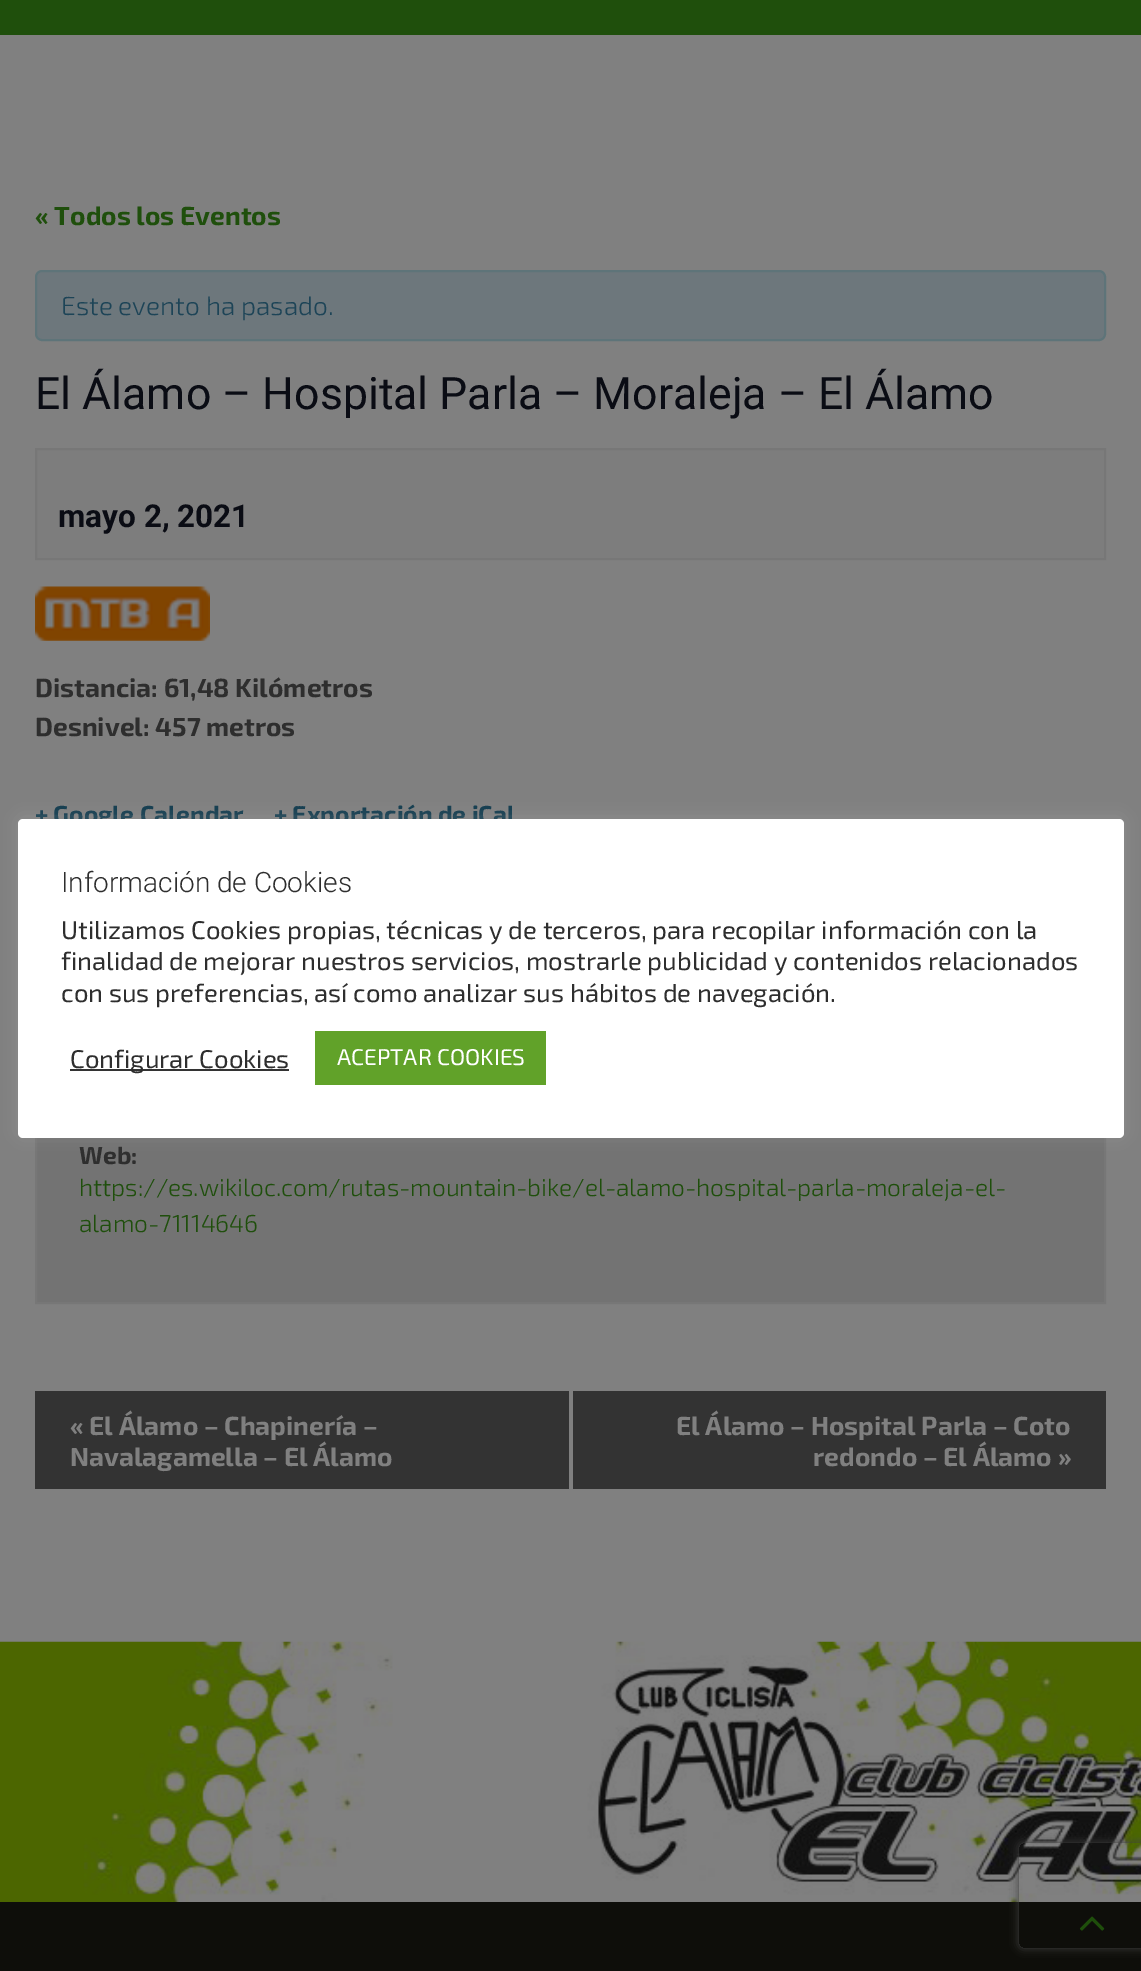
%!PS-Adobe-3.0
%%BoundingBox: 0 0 1141 1971
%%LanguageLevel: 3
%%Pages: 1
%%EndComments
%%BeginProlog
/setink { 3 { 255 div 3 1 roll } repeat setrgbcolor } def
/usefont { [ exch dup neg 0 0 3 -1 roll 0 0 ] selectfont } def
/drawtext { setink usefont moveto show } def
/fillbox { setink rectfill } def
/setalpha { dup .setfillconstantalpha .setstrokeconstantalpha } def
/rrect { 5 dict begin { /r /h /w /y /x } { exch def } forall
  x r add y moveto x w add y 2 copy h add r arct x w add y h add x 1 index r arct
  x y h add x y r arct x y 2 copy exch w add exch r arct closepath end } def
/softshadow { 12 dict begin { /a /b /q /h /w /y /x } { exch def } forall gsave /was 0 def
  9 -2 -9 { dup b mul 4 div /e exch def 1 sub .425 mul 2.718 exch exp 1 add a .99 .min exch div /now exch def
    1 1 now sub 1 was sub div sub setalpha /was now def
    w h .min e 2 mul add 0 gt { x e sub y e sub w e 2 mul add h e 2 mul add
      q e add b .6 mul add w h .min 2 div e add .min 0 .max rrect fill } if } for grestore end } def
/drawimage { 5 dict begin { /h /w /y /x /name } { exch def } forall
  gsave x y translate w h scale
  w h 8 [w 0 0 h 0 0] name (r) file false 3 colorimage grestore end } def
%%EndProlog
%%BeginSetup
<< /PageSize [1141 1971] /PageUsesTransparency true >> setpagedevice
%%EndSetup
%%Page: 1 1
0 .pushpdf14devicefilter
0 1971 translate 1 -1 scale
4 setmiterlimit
0 0 1141 1971 128 128 128 fillbox
0 0 1141 35 31 79 12 fillbox
(« Todos los Eventos) 35 225 /Exo2-Bold 26.25 31 79 12 drawtext
109 119 124 setink
36 271 1069 69 6 rrect gsave fill grestore
94 116 121 setink
2 setlinewidth
stroke
(Este evento ha pasado.) 61 315 /Exo2-Light 26.25 29 68 87 drawtext
(El Álamo – Hospital Parla – Moraleja – El Álamo) 35 409 /Roboto-Regular 44.6 10 12 20 drawtext
125 125 125 setink
36 449 moveto 1105 449 lineto 1105 559 lineto 36 559 lineto closepath gsave fill grestore
119 119 119 setink
stroke
(mayo 2, 2021) 58 527 /Roboto-Bold 31.5 10 12 20 drawtext
(assets/img1.rgb) 35 586 175 55 drawimage
(Distancia: 61,48 Kilómetros) 35 697 /Exo2-Bold 26.25 46 46 46 drawtext
(Desnivel: 457 metros) 35 736 /Exo2-Bold 26.25 46 46 46 drawtext
(+ Google Calendar) 35 823 /Exo2-Bold 24.5 17 59 78 drawtext
(+ Exportación de iCal) 274 823 /Exo2-Bold 24.5 17 59 78 drawtext
37 1138 1067 164 115 115 115 fillbox
119 119 119 setink
36 883 1069 420 rectstroke
(Web:) 79 1164 /Exo2-Bold 24.5 46 46 46 drawtext
(https://es.wikiloc.com/rutas-mountain-bike/el-alamo-hospital-parla-moraleja-el-) 79 1196 /Exo2-Light 24.5 31 79 12 drawtext
(alamo-71114646) 79 1232 /Exo2-Light 24.5 31 79 12 drawtext
35 1391 534 98 51 51 51 fillbox
(« El Álamo – Chapinería –) 70 1435 /Exo2-Bold 26.25 128 128 128 drawtext
(Navalagamella – El Álamo) 70 1466 /Exo2-Bold 26.25 128 128 128 drawtext
573 1391 533 98 51 51 51 fillbox
(El Álamo – Hospital Parla – Coto) 676 1435 /Exo2-Bold 26.25 128 128 128 drawtext
(redondo – El Álamo ») 813 1466 /Exo2-Bold 26.25 128 128 128 drawtext
(assets/img2.rgb) 0 1641 1141 261 drawimage
0 1902 1141 69 14 14 10 fillbox
172 171 171 setink
18 817 1106 319 5 9 0.3 softshadow
255 255 255 setink
18 819 1106 319 5 rrect fill
(Información de Cookies) 61 892 /Roboto-Light 28 46 46 46 drawtext
(Utilizamos Cookies propias, técnicas y de terceros, para recopilar información con la) 61 939 /Exo2-Regular 25.65 46 46 46 drawtext
(finalidad de mejorar nuestros servicios, mostrarle publicidad y contenidos relacionados) 61 970 /Exo2-Regular 25.65 46 46 46 drawtext
(con sus preferencias, así como analizar sus hábitos de navegación.) 61 1002 /Exo2-Regular 25.65 46 46 46 drawtext
70 1069 219 2 51 51 51 fillbox
(Configurar Cookies) 70 1068 /Exo2-Regular 25.65 46 46 46 drawtext
315 1031 231 54 97 162 41 fillbox
(ACEPTAR COOKIES) 337 1065 /Exo2-Regular 22.75 255 255 255 drawtext
gsave
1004 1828 moveto 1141 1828 lineto 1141 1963 lineto 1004 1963 lineto closepath 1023 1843 moveto 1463 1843 lineto 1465 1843 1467 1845 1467 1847 curveto 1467 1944 lineto 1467 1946 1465 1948 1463 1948 curveto 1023 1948 lineto 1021 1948 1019 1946 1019 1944 curveto 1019 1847 lineto 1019 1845 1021 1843 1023 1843 curveto closepath eoclip newpath
64 64 64 setink
1019 1843 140 105 4 4.5 1 softshadow
grestore
(assets/img3.rgb) 1079 1916 26 15 drawimage
.poppdf14devicefilter showpage
%%EOF
